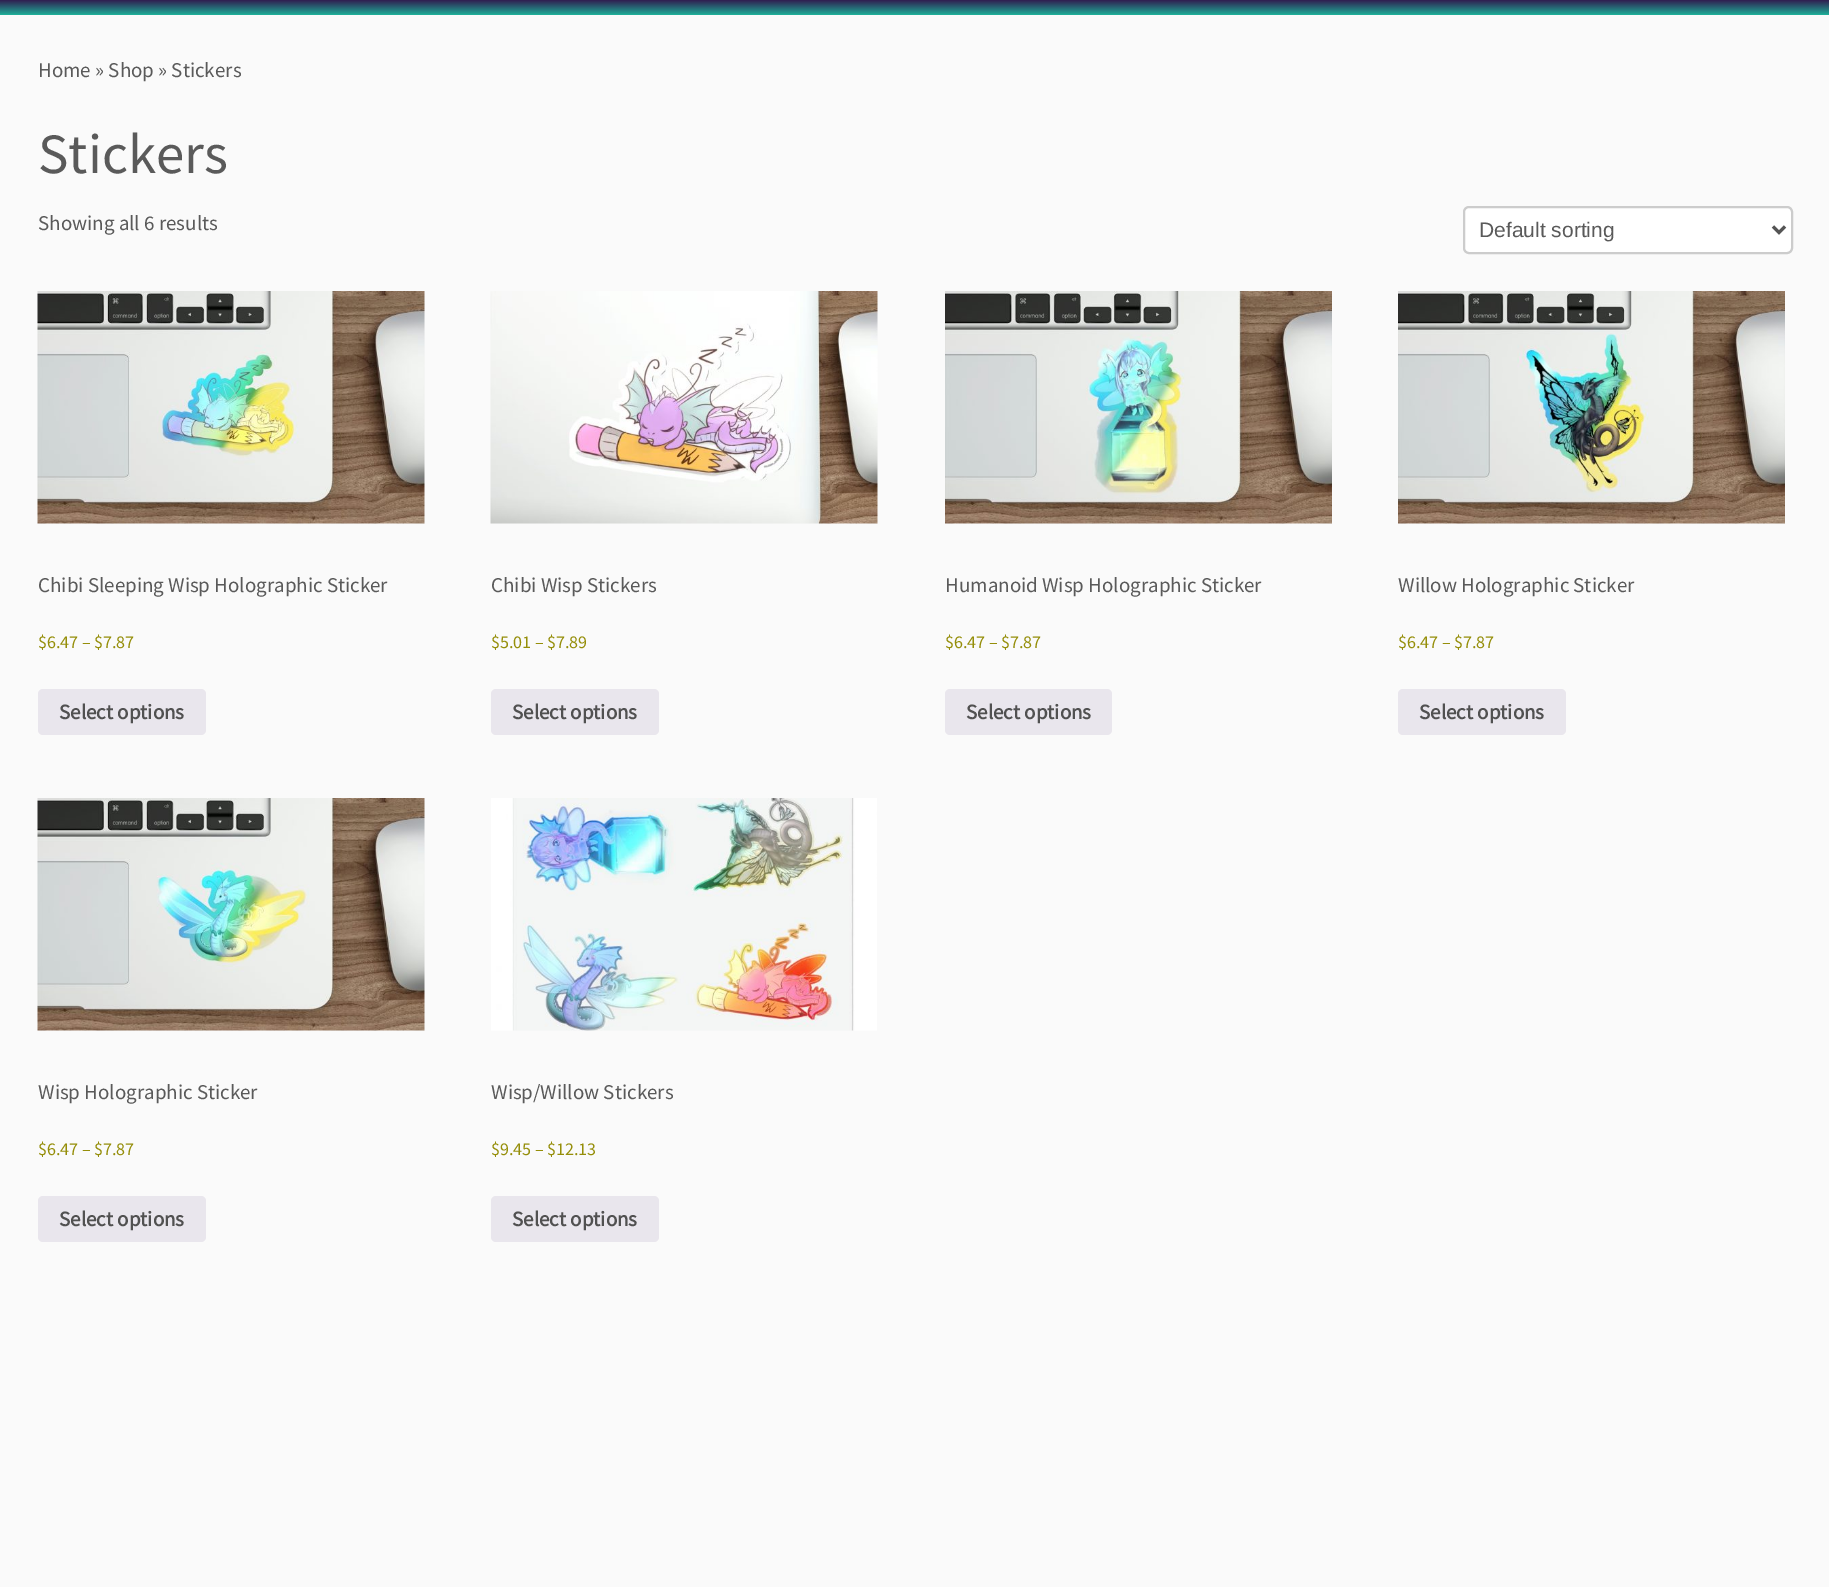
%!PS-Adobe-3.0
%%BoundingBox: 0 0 1829 1587
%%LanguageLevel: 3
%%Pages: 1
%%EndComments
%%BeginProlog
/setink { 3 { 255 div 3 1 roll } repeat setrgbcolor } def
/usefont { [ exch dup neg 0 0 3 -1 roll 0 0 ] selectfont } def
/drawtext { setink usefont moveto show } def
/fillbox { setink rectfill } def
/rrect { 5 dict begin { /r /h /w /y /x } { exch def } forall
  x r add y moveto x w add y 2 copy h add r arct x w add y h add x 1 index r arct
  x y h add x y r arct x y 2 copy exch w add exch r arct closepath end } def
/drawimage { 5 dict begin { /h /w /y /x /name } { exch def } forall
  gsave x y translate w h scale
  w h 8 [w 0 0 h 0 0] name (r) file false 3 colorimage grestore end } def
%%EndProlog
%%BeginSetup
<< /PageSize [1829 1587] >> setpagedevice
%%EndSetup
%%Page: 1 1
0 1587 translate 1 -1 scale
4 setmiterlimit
0 0 1829 1587 250 250 250 fillbox
gsave 0 0 moveto 1829 0 lineto 1829 15 lineto 0 15 lineto closepath clip newpath
<< /ShadingType 2 /ColorSpace /DeviceRGB /Coords [915 0 915 15] /Extend [true true] /Function << /FunctionType 2 /Domain [0 1] /C0 [0.188 0.114 0.314] /C1 [0.118 0.682 0.596] /N 1 >> >> shfill grestore
(Home » Shop » Stickers) 38 77 /SourceSansPro-Regular 21 90 90 90 drawtext
(Stickers) 38 173 /SourceSansPro-Regular 57 90 90 90 drawtext
(Showing all 6 results) 38 230 /SourceSansPro-Regular 21 90 90 90 drawtext
255 255 255 setink
1464 207 328 46 5 rrect gsave fill grestore
204 204 204 setink
2 setlinewidth
stroke
85 85 85 setink
3 setlinewidth
1773 226.5 moveto 1779 232.5 lineto 1785 226.5 lineto stroke
(Default sorting) 1479 237 /LiberationSans-Regular 21 90 90 90 drawtext
(assets/img1.rgb) 37 291 388 233 drawimage
(Chibi Sleeping Wisp Holographic Sticker) 38 592 /SourceSansPro-Regular 21 90 90 90 drawtext
($6.47 – $7.87) 38 648 /SourceSansPro-Regular 18 149 142 9 drawtext
233 230 237 setink
38 689 168 46 5 rrect fill
(Select options) 59 719 /SourceSansPro-Bold 21 81 81 81 drawtext
(assets/img2.rgb) 490 291 388 233 drawimage
(Chibi Wisp Stickers) 491 592 /SourceSansPro-Regular 21 90 90 90 drawtext
($5.01 – $7.89) 491 648 /SourceSansPro-Regular 18 149 142 9 drawtext
233 230 237 setink
491 689 168 46 5 rrect fill
(Select options) 512 719 /SourceSansPro-Bold 21 81 81 81 drawtext
(assets/img3.rgb) 945 291 387 233 drawimage
(Humanoid Wisp Holographic Sticker) 945 592 /SourceSansPro-Regular 21 90 90 90 drawtext
($6.47 – $7.87) 945 648 /SourceSansPro-Regular 18 149 142 9 drawtext
233 230 237 setink
945 689 167 46 5 rrect fill
(Select options) 966 719 /SourceSansPro-Bold 21 81 81 81 drawtext
(assets/img4.rgb) 1398 291 387 233 drawimage
(Willow Holographic Sticker) 1398 592 /SourceSansPro-Regular 21 90 90 90 drawtext
($6.47 – $7.87) 1398 648 /SourceSansPro-Regular 18 149 142 9 drawtext
233 230 237 setink
1398 689 168 46 5 rrect fill
(Select options) 1419 719 /SourceSansPro-Bold 21 81 81 81 drawtext
(assets/img5.rgb) 37 798 388 233 drawimage
(Wisp Holographic Sticker) 38 1099 /SourceSansPro-Regular 21 90 90 90 drawtext
($6.47 – $7.87) 38 1155 /SourceSansPro-Regular 18 149 142 9 drawtext
233 230 237 setink
38 1196 168 46 5 rrect fill
(Select options) 59 1226 /SourceSansPro-Bold 21 81 81 81 drawtext
(assets/img6.rgb) 491 798 386 233 drawimage
(Wisp/Willow Stickers) 491 1099 /SourceSansPro-Regular 21 90 90 90 drawtext
($9.45 – $12.13) 491 1155 /SourceSansPro-Regular 18 149 142 9 drawtext
233 230 237 setink
491 1196 168 46 5 rrect fill
(Select options) 512 1226 /SourceSansPro-Bold 21 81 81 81 drawtext
showpage
%%EOF
